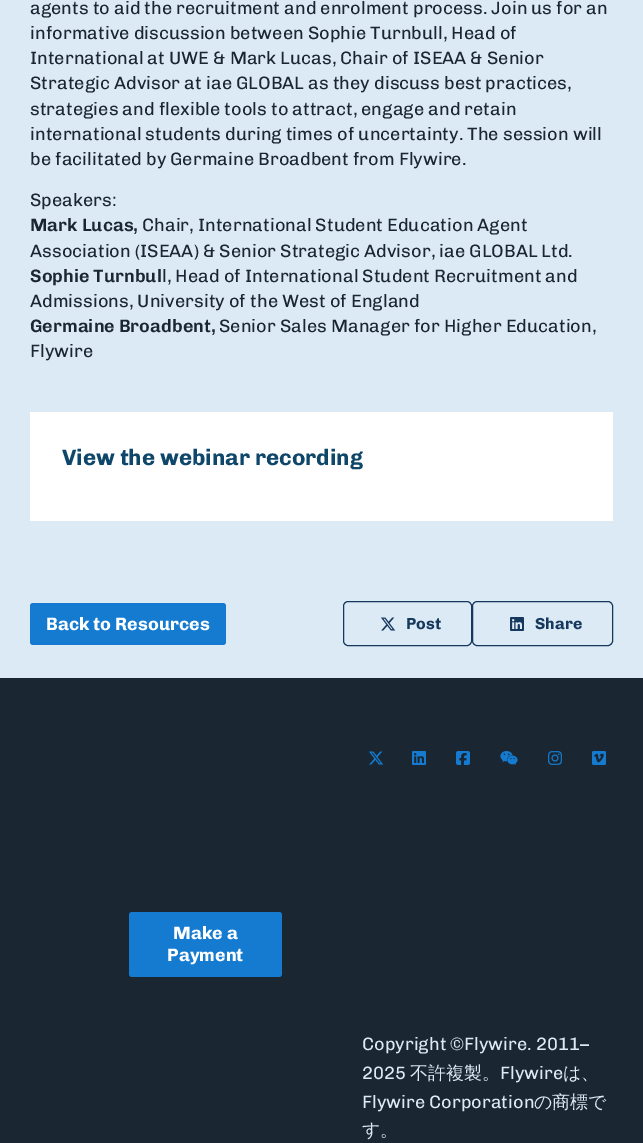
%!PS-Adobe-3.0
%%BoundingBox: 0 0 643 1143
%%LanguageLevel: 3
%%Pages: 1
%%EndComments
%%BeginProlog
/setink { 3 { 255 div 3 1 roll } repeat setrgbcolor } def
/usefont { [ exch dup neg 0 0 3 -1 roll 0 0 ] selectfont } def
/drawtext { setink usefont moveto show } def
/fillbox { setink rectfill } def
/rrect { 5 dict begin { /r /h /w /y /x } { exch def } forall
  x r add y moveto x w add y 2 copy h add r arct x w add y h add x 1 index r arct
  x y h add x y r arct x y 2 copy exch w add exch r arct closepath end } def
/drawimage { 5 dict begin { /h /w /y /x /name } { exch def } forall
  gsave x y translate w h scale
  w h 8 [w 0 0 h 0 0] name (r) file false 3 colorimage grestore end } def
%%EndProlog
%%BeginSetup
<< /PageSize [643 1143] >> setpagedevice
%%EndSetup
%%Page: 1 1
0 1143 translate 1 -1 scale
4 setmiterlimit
0 0 643 1143 220 234 246 fillbox
(agents to aid the recruitment and enrolment process. Join us for an) 30 14 /Chivo-Regular 18 26 39 50 drawtext
(informative discussion between Sophie Turnbull, Head of) 30 39 /Chivo-Regular 18 26 39 50 drawtext
(International at UWE & Mark Lucas, Chair of ISEAA & Senior) 30 64 /Chivo-Regular 18 26 39 50 drawtext
(Strategic Advisor at iae GLOBAL as they discuss best practices,) 30 89 /Chivo-Regular 18 26 39 50 drawtext
(strategies and flexible tools to attract, engage and retain) 30 115 /Chivo-Regular 18 26 39 50 drawtext
(international students during times of uncertainty. The session will) 30 140 /Chivo-Regular 18 26 39 50 drawtext
(be facilitated by Germaine Broadbent from Flywire.) 30 165 /Chivo-Regular 18 26 39 50 drawtext
(Speakers:) 30 206 /Chivo-Regular 18 26 39 50 drawtext
(Mark Lucas,) 30 231 /Chivo-SemiBold 18 26 39 50 drawtext
(Chair, International Student Education Agent) 142 231 /Chivo-Regular 18 26 39 50 drawtext
(Association \(ISEAA\) & Senior Strategic Advisor, iae GLOBAL Ltd.) 30 257 /Chivo-Regular 18 26 39 50 drawtext
(Sophie Turnbul) 30 282 /Chivo-SemiBold 18 26 39 50 drawtext
(l, Head of International Student Recruitment and) 162 282 /Chivo-Regular 18 26 39 50 drawtext
(Admissions, University of the West of England) 30 307 /Chivo-Regular 18 26 39 50 drawtext
(Germaine Broadbent,) 30 332 /Chivo-SemiBold 18 26 39 50 drawtext
(Senior Sales Manager for Higher Education,) 219 332 /Chivo-Regular 18 26 39 50 drawtext
(Flywire) 30 357 /Chivo-Regular 18 26 39 50 drawtext
30 412 583 109 255 255 255 fillbox
(View the webinar recording) 62 465 /Chivo-Bold 22.4 15 71 107 drawtext
20 123 209 setink
30 603 196 42 3 rrect fill
(Back to Resources) 46 630 /Chivo-Bold 18 255 255 255 drawtext
21 56 92 setink
343.5 601.5 128 44 4.5 rrect stroke
(assets/img1.rgb) 381 617 15 14 drawimage
(Post) 406 629 /Chivo-Bold 16 21 56 92 drawtext
472.5 601.5 140 44 4.5 rrect stroke
(assets/img2.rgb) 510 617 14 14 drawimage
(Share) 535 629 /Chivo-Bold 16 21 56 92 drawtext
0 678 643 465 26 39 50 fillbox
20 123 209 setink
129 912 153 65 3 rrect fill
(Make a) 173 939 /Chivo-Bold 18 255 255 255 drawtext
(Payment) 167 961 /Chivo-Bold 18 255 255 255 drawtext
(assets/img3.rgb) 369 751 15 14 drawimage
(assets/img4.rgb) 412 751 14 14 drawimage
(assets/img5.rgb) 456 751 14 14 drawimage
(assets/img6.rgb) 500 751 18 14 drawimage
(assets/img7.rgb) 548 751 14 14 drawimage
(assets/img8.rgb) 592 751 14 14 drawimage
(Copyright ©Flywire. 2011–) 362 1050 /Chivo-Regular 18 220 234 246 drawtext
(2025) 362 1079 /Chivo-Regular 18 220 234 246 drawtext
(不許複製。) 410 1079 /WenQuanYiZenHei-Medium 18 220 234 246 drawtext
(Flywire) 500 1079 /Chivo-Regular 18 220 234 246 drawtext
(は、) 563 1079 /WenQuanYiZenHei-Medium 18 220 234 246 drawtext
(Flywire Corporation) 362 1108 /Chivo-Regular 18 220 234 246 drawtext
(の商標で) 534 1108 /WenQuanYiZenHei-Medium 18 220 234 246 drawtext
(す。) 362 1136 /WenQuanYiZenHei-Medium 18 220 234 246 drawtext
showpage
%%EOF
